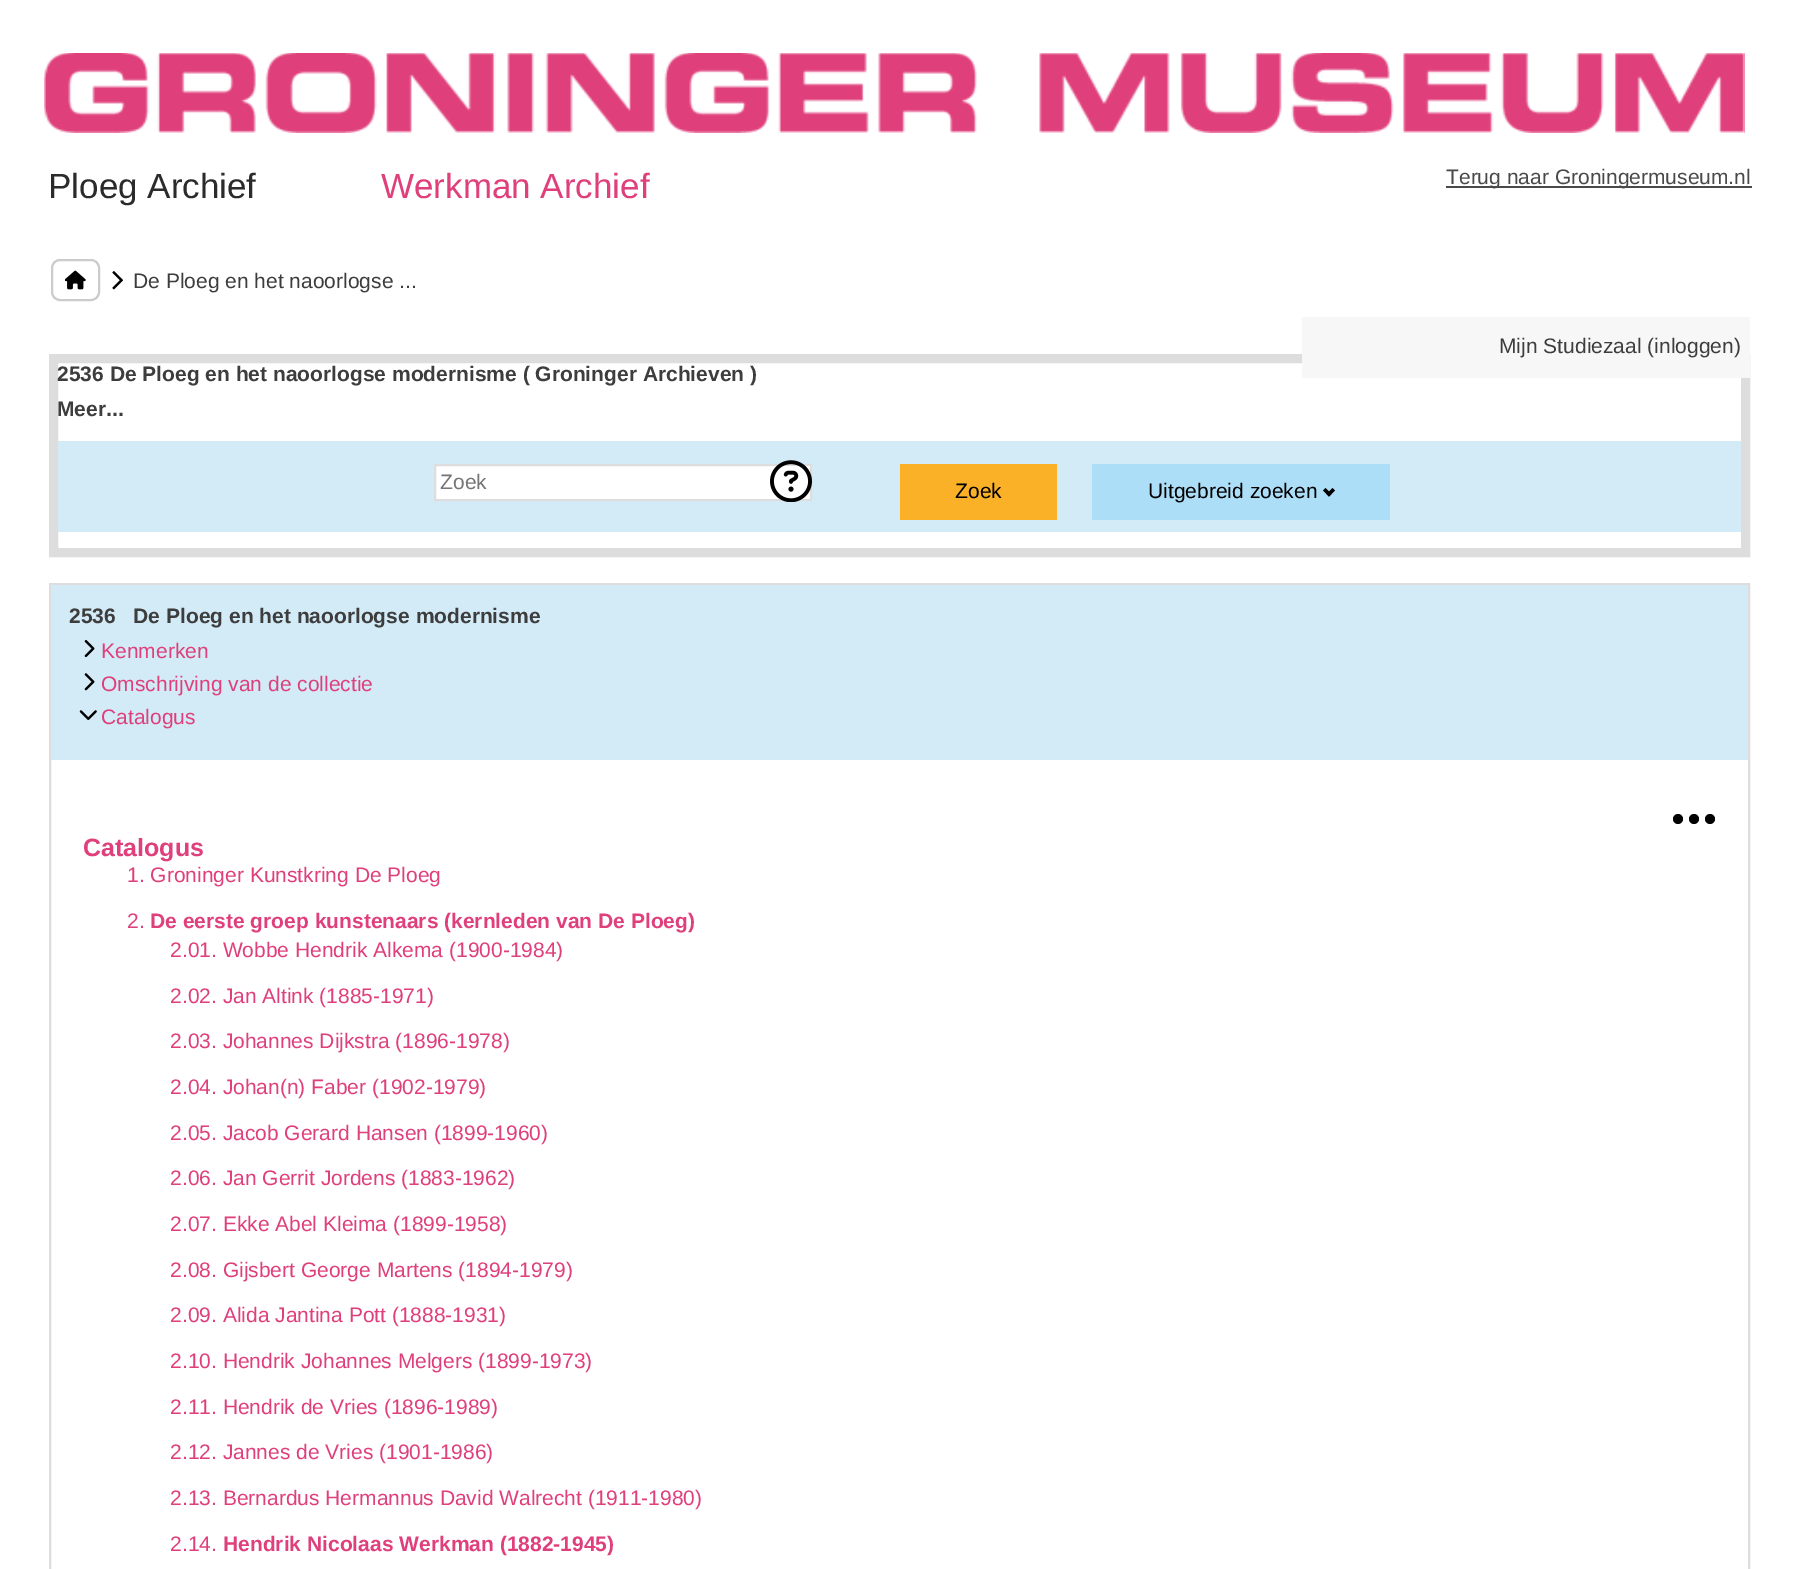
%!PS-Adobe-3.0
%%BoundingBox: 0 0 1796 1569
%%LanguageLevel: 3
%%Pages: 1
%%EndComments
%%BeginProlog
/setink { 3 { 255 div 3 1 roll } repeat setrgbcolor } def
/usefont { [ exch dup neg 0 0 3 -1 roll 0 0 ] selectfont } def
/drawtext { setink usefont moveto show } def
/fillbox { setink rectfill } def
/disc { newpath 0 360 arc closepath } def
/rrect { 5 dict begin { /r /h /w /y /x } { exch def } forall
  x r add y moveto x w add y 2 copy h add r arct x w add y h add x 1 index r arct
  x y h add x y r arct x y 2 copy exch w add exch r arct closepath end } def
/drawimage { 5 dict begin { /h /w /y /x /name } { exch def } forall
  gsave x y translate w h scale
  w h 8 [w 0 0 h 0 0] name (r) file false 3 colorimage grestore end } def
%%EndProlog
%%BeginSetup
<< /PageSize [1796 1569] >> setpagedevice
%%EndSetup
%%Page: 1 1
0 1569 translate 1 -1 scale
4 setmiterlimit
0 0 1796 1569 255 255 255 fillbox
44 53 1701 80 223 63 123 fillbox
(assets/img1.rgb) 44 53 1701 80 drawimage
(Ploeg Archief) 48 198 /LiberationSans-Regular 35 43 43 43 drawtext
(Werkman Archief) 381 198 /LiberationSans-Regular 35 223 63 123 drawtext
1446 186 306 2 73 73 73 fillbox
(Terug naar Groningermuseum.nl) 1446 184 /LiberationSans-Regular 21 73 73 73 drawtext
204 204 204 setink
2 setlinewidth
52 260 47 40 8 rrect stroke
(assets/img2.rgb) 65 270 21 20 drawimage
(assets/img3.rgb) 112 271 11 19 drawimage
(De Ploeg en het naoorlogse ...) 133 288 /LiberationSans-Regular 21 61 61 61 drawtext
221 221 221 setink
9 setlinewidth
53.5 358.5 1692 194 rectstroke
1302 317 448 61 247 247 247 fillbox
(Mijn Studiezaal \(inloggen\)) 1499 353 /LiberationSans-Regular 21 61 61 61 drawtext
(2536 De Ploeg en het naoorlogse modernisme \( Groninger Archieven \)) 57 381 /LiberationSans-Bold 21 61 61 61 drawtext
(Meer...) 57 416 /LiberationSans-Bold 21 61 61 61 drawtext
58 441 1683 91 211 235 247 fillbox
255 255 255 setink
435 465 moveto 811 465 lineto 811 500 lineto 435 500 lineto closepath gsave fill grestore
221 221 221 setink
2 setlinewidth
stroke
(Zoek) 440 489 /LiberationSans-Regular 21 117 117 117 drawtext
(assets/img4.rgb) 770 460 42 42 drawimage
900 464 157 56 250 177 39 fillbox
(Zoek) 955 498 /LiberationSans-Regular 21 0 0 0 drawtext
1092 464 298 56 173 222 247 fillbox
(Uitgebreid zoeken) 1148 498 /LiberationSans-Regular 21 0 0 0 drawtext
1335 490.5 moveto 1329 496.5 lineto 1326.5 494 lineto 1332.5 488 lineto closepath fill
1331.5 494 moveto 1329 496.5 lineto 1323 490.5 lineto 1325.5 488 lineto closepath fill
221 221 221 setink
50 584 1699 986 rectstroke
51 585 1697 175 211 235 247 fillbox
(2536   De Ploeg en het naoorlogse modernisme) 69 623 /LiberationSans-Bold 21 61 61 61 drawtext
(assets/img5.rgb) 84 640 11 18 drawimage
(Kenmerken) 101 658 /LiberationSans-Regular 21 223 63 123 drawtext
(assets/img6.rgb) 84 673 11 18 drawimage
(Omschrijving van de collectie) 101 691 /LiberationSans-Regular 21 223 63 123 drawtext
(assets/img7.rgb) 79 710 18 10 drawimage
(Catalogus) 101 724 /LiberationSans-Regular 21 223 63 123 drawtext
0 0 0 setink
1678 819 5 disc fill
1694 819 5 disc fill
1710 819 5 disc fill
(Catalogus) 83 856 /LiberationSans-Bold 25 223 63 123 drawtext
(1. Groninger Kunstkring De Ploeg) 127 882 /LiberationSans-Regular 21 223 63 123 drawtext
(2.) 127 928 /LiberationSans-Regular 21 223 63 123 drawtext
(De eerste groep kunstenaars \(kernleden van De Ploeg\)) 150 928 /LiberationSans-Bold 21 223 63 123 drawtext
(2.01. Wobbe Hendrik Alkema \(1900-1984\)) 170 957 /LiberationSans-Regular 21 223 63 123 drawtext
(2.02. Jan Altink \(1885-1971\)) 170 1003 /LiberationSans-Regular 21 223 63 123 drawtext
(2.03. Johannes Dijkstra \(1896-1978\)) 170 1048 /LiberationSans-Regular 21 223 63 123 drawtext
(2.04. Johan\(n\) Faber \(1902-1979\)) 170 1094 /LiberationSans-Regular 21 223 63 123 drawtext
(2.05. Jacob Gerard Hansen \(1899-1960\)) 170 1140 /LiberationSans-Regular 21 223 63 123 drawtext
(2.06. Jan Gerrit Jordens \(1883-1962\)) 170 1185 /LiberationSans-Regular 21 223 63 123 drawtext
(2.07. Ekke Abel Kleima \(1899-1958\)) 170 1231 /LiberationSans-Regular 21 223 63 123 drawtext
(2.08. Gijsbert George Martens \(1894-1979\)) 170 1277 /LiberationSans-Regular 21 223 63 123 drawtext
(2.09. Alida Jantina Pott \(1888-1931\)) 170 1322 /LiberationSans-Regular 21 223 63 123 drawtext
(2.10. Hendrik Johannes Melgers \(1899-1973\)) 170 1368 /LiberationSans-Regular 21 223 63 123 drawtext
(2.11. Hendrik de Vries \(1896-1989\)) 170 1414 /LiberationSans-Regular 21 223 63 123 drawtext
(2.12. Jannes de Vries \(1901-1986\)) 170 1459 /LiberationSans-Regular 21 223 63 123 drawtext
(2.13. Bernardus Hermannus David Walrecht \(1911-1980\)) 170 1505 /LiberationSans-Regular 21 223 63 123 drawtext
(2.14.) 170 1551 /LiberationSans-Regular 21 223 63 123 drawtext
(Hendrik Nicolaas Werkman \(1882-1945\)) 223 1551 /LiberationSans-Bold 21 223 63 123 drawtext
showpage
%%EOF
